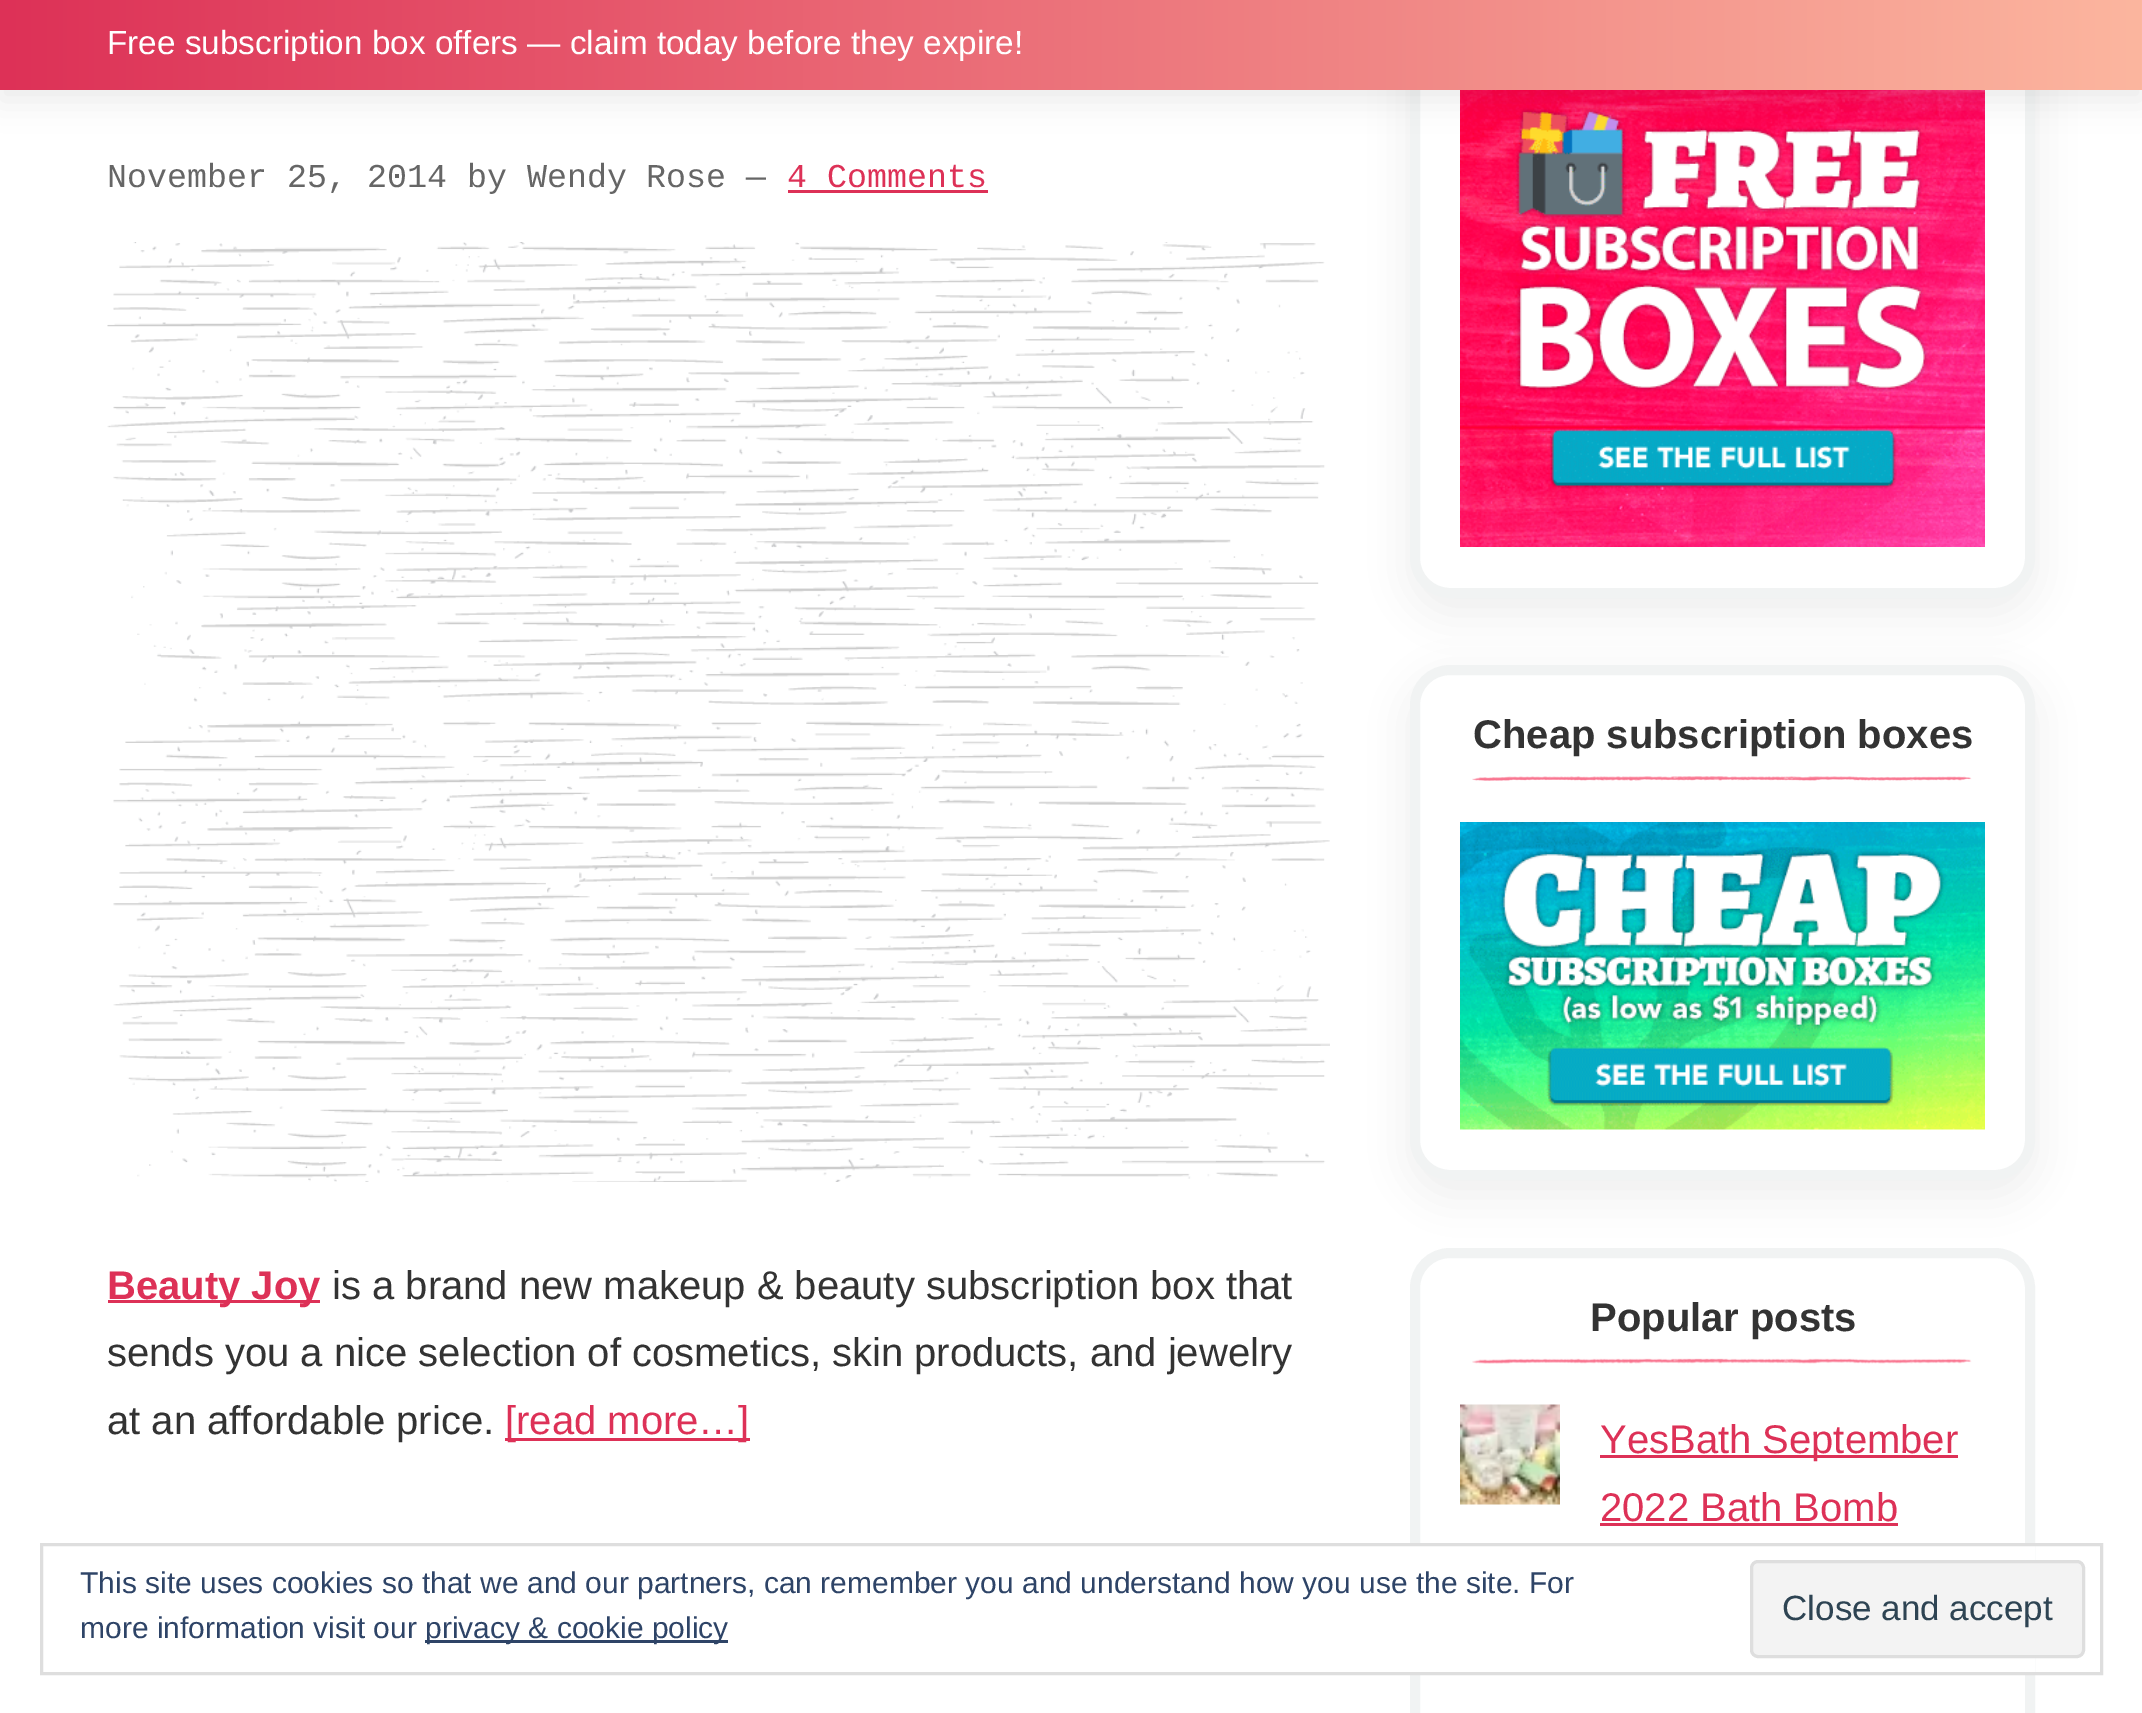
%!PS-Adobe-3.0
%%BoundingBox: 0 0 2142 1713
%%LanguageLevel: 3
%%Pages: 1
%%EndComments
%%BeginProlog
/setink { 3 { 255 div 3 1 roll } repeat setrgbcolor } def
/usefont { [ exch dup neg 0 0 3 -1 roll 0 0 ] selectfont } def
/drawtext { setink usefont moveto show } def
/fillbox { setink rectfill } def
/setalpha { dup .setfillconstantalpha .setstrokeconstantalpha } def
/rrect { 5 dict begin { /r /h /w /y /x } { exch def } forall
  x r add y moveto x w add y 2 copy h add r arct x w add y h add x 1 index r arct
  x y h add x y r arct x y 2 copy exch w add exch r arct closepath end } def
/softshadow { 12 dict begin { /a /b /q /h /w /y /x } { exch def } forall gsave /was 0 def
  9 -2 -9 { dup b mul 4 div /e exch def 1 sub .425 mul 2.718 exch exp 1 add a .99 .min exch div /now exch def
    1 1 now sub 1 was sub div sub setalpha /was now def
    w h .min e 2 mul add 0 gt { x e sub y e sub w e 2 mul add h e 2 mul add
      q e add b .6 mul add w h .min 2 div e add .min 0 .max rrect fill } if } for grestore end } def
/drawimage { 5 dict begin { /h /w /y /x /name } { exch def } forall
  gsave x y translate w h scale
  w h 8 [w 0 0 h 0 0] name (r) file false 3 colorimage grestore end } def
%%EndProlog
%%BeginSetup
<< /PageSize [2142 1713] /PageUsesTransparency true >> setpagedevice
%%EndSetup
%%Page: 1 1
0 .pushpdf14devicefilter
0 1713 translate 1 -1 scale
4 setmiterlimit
0 0 2142 1713 255 255 255 fillbox
51 51 51 setink
1410 -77 625 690 40 19 0.08 softshadow
255 255 255 setink
1415 -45 615 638 35 rrect gsave fill grestore
241 243 243 setink
10 setlinewidth
stroke
(assets/img2.rgb) 1460 90 525 457 drawimage
51 51 51 setink
0 10 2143 90 0 15 0.1 softshadow
gsave 0 0 moveto 2142 0 lineto 2142 90 lineto 0 90 lineto closepath clip newpath
<< /ShadingType 2 /ColorSpace /DeviceRGB /Coords [0 45 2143 45] /Extend [true true] /Function << /FunctionType 2 /Domain [0 1] /C0 [0.867 0.192 0.341] /C1 [0.988 0.714 0.624] /N 1 >> >> shfill grestore
(Free subscription box offers — claim today before they expire!) 107 54 /LiberationSans-Regular 33.3 255 255 255 drawtext
(November 25, 2014 by Wendy Rose —) 107 187 /LiberationMono-Regular 33.3 102 102 102 drawtext
(4 Comments) 787 187 /LiberationMono-Regular 33.3 221 49 87 drawtext
788 190 200 3 221 49 87 fillbox
(assets/img1.rgb) 107 242 1223 940 drawimage
108 1300 212 3 221 49 87 fillbox
(Beauty Joy) 107 1299 /LiberationSans-Bold 40 221 49 87 drawtext
(is a brand new makeup & beauty subscription box that) 332 1299 /LiberationSans-Regular 40 51 51 51 drawtext
(sends you a nice selection of cosmetics, skin products, and jewelry) 107 1366 /LiberationSans-Regular 40 51 51 51 drawtext
(at an affordable price.) 107 1434 /LiberationSans-Regular 40 51 51 51 drawtext
505 1438 245 3 221 49 87 fillbox
([read more…]) 505 1434 /LiberationSans-Regular 40 221 49 87 drawtext
51 51 51 setink
1410 680 625 515 40 19 0.08 softshadow
255 255 255 setink
1415 670 615 505 35 rrect gsave fill grestore
241 243 243 setink
stroke
(Cheap subscription boxes) 1473 748 /LiberationSans-Bold 40 51 51 51 drawtext
(assets/img3.rgb) 1472 776 500 5 drawimage
(assets/img4.rgb) 1460 822 525 308 drawimage
241 243 243 setink
1415 1253 615 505 35 rrect stroke
(Popular posts) 1590 1331 /LiberationSans-Bold 40 51 51 51 drawtext
(assets/img5.rgb) 1472 1358 500 6 drawimage
(assets/img6.rgb) 1460 1404 100 101 drawimage
1600 1455 358 3 221 49 87 fillbox
(YesBath September) 1600 1453 /LiberationSans-Regular 40 221 49 87 drawtext
(2022 Bath Bomb) 1600 1521 /LiberationSans-Regular 40 221 49 87 drawtext
1600 1523 298 3 221 49 87 fillbox
1410 1546 625 126 255 255 255 fillbox
222 222 222 setink
3 setlinewidth
41.5 1544.5 2060 129 rectstroke
(This site uses cookies so that we and our partners, can remember you and understand how you use the site. For) 80 1593 /LiberationSans-Regular 30 46 68 103 drawtext
(more information visit our) 80 1638 /LiberationSans-Regular 30 46 68 103 drawtext
425 1640 303 3 46 68 103 fillbox
(privacy & cookie policy) 425 1638 /LiberationSans-Regular 30 46 68 103 drawtext
243 243 243 setink
1751.5 1561.5 332 95 6.5 rrect gsave fill grestore
222 222 222 setink
stroke
(Close and accept) 1782 1620 /LiberationSans-Regular 35 46 68 83 drawtext
.poppdf14devicefilter showpage
%%EOF
